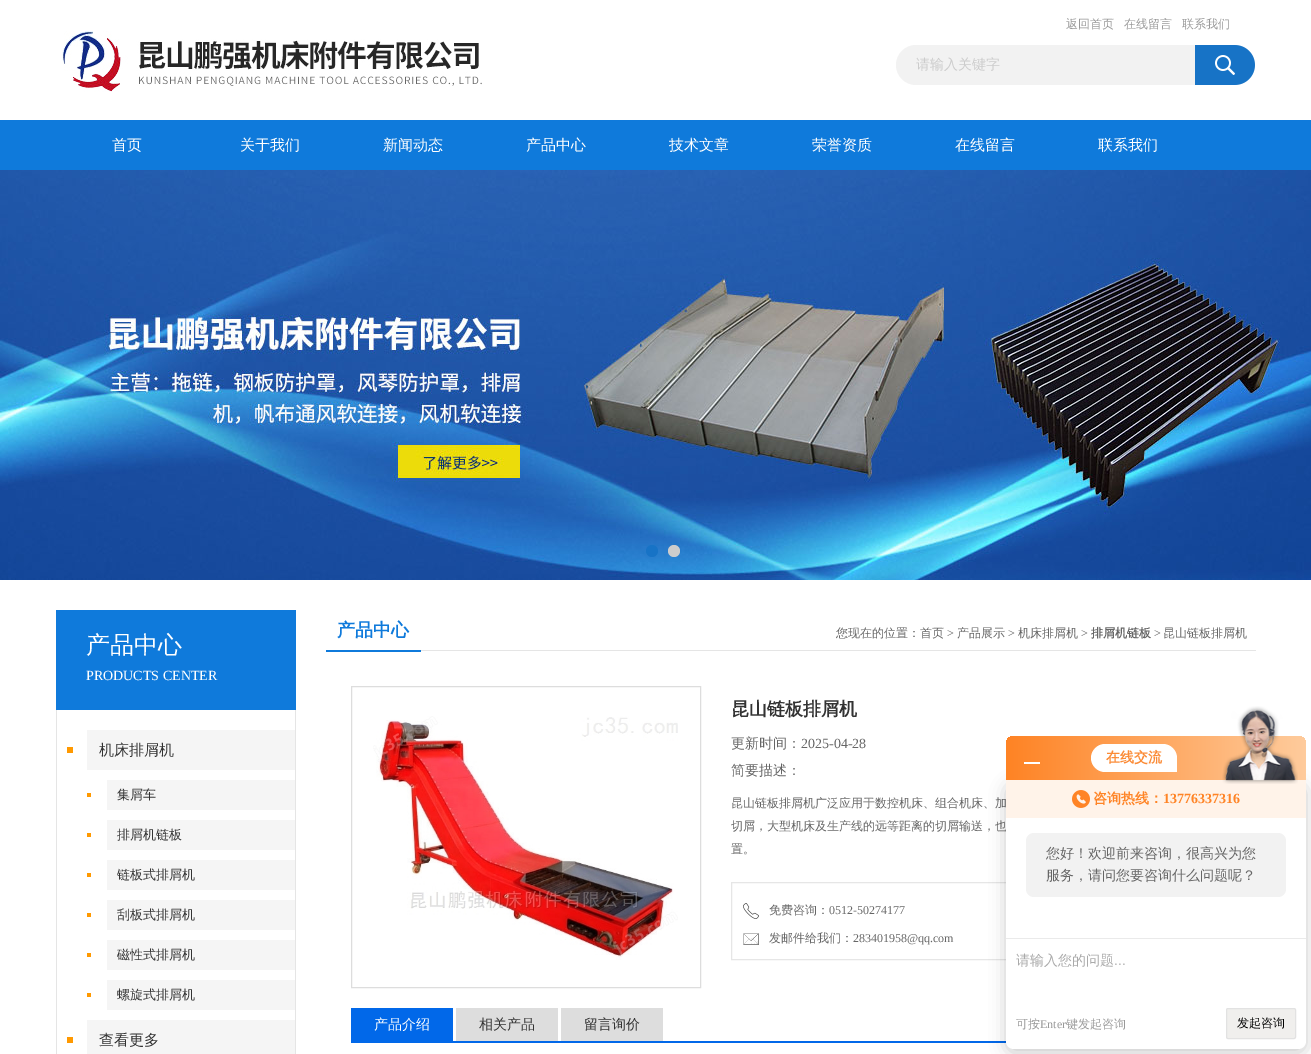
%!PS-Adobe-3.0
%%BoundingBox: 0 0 1311 1054
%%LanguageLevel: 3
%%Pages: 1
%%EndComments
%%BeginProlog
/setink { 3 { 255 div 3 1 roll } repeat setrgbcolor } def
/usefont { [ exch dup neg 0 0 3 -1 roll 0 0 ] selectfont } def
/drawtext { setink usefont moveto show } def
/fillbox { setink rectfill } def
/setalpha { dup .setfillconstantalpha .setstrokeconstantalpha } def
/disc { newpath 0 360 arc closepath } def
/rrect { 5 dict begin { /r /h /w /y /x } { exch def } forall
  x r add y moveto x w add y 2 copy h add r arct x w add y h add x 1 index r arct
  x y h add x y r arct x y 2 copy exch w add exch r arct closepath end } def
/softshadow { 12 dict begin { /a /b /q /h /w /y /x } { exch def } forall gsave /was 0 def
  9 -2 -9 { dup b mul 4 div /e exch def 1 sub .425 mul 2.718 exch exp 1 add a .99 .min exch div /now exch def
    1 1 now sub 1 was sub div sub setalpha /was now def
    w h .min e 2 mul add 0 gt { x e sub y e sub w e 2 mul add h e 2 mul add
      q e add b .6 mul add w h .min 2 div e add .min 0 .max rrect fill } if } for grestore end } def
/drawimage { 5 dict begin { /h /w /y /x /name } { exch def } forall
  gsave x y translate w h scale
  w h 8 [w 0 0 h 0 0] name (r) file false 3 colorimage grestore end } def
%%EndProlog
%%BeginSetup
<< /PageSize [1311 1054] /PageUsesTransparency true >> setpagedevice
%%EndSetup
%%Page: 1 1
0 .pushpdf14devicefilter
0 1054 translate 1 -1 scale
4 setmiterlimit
0 0 1311 1054 255 255 255 fillbox
(assets/img1.rgb) 62 31 420 61 drawimage
(返回首页) 1066 28 /WenQuanYiZenHei-Medium 12 153 153 153 drawtext
(在线留言) 1124 28 /WenQuanYiZenHei-Medium 12 153 153 153 drawtext
(联系我们) 1182 28 /WenQuanYiZenHei-Medium 12 153 153 153 drawtext
242 242 242 setink
916 45 moveto 1195 45 lineto 1195 85 lineto 916 85 lineto 905 85 896 76 896 65 curveto 896 54 905 45 916 45 curveto closepath fill
(请输入关键字) 916 69 /WenQuanYiZenHei-Medium 14 204 204 204 drawtext
(assets/img2.rgb) 1195 45 60 40 drawimage
0 120 1311 50 15 122 219 fillbox
(首页) 112 150 /WenQuanYiZenHei-Medium 15 255 255 255 drawtext
(关于我们) 240 150 /WenQuanYiZenHei-Medium 15 255 255 255 drawtext
(新闻动态) 383 150 /WenQuanYiZenHei-Medium 15 255 255 255 drawtext
(产品中心) 526 150 /WenQuanYiZenHei-Medium 15 255 255 255 drawtext
(技术文章) 669 150 /WenQuanYiZenHei-Medium 15 255 255 255 drawtext
(荣誉资质) 812 150 /WenQuanYiZenHei-Medium 15 255 255 255 drawtext
(在线留言) 955 150 /WenQuanYiZenHei-Medium 15 255 255 255 drawtext
(联系我们) 1098 150 /WenQuanYiZenHei-Medium 15 255 255 255 drawtext
(assets/img3.rgb) 0 170 1311 410 drawimage
23 115 198 setink
652 551 6 disc fill
204 204 204 setink
674 551 6 disc fill
56 610 240 100 15 122 219 fillbox
(产品中心) 86 653 /WenQuanYiZenHei-Medium 24 255 255 255 drawtext
(PRODUCTS CENTER) 86 680 /LiberationSerif-Regular 14 255 255 255 drawtext
295 710 1 344 229 229 229 fillbox
56 710 1 344 229 229 229 fillbox
67 747 6 6 255 153 0 fillbox
87 730 208 40 245 245 245 fillbox
(机床排屑机) 99 755 /WenQuanYiZenHei-Medium 15 51 51 51 drawtext
87 793 4 4 255 153 0 fillbox
107 780 188 30 245 245 245 fillbox
(集屑车) 117 799 /WenQuanYiZenHei-Medium 13 51 51 51 drawtext
87 833 4 4 255 153 0 fillbox
107 820 188 30 245 245 245 fillbox
(排屑机链板) 117 839 /WenQuanYiZenHei-Medium 13 51 51 51 drawtext
87 873 4 4 255 153 0 fillbox
107 860 188 30 245 245 245 fillbox
(链板式排屑机) 117 879 /WenQuanYiZenHei-Medium 13 51 51 51 drawtext
87 913 4 4 255 153 0 fillbox
107 900 188 30 245 245 245 fillbox
(刮板式排屑机) 117 919 /WenQuanYiZenHei-Medium 13 51 51 51 drawtext
87 953 4 4 255 153 0 fillbox
107 940 188 30 245 245 245 fillbox
(磁性式排屑机) 117 959 /WenQuanYiZenHei-Medium 13 51 51 51 drawtext
87 993 4 4 255 153 0 fillbox
107 980 188 30 245 245 245 fillbox
(螺旋式排屑机) 117 999 /WenQuanYiZenHei-Medium 13 51 51 51 drawtext
67 1037 6 6 255 153 0 fillbox
87 1020 208 34 245 245 245 fillbox
(查看更多) 99 1045 /WenQuanYiZenHei-Medium 15 51 51 51 drawtext
421 650 835 1 229 229 229 fillbox
326 650 95 2 15 122 219 fillbox
(产品中心) 337 636 /WenQuanYiZenHei-Bold 18 15 122 219 drawtext
(您现在的位置：首页) 836 637 /WenQuanYiZenHei-Medium 12 102 102 102 drawtext
(>) 947 637 /LiberationSerif-Regular 12 102 102 102 drawtext
(产品展示) 957 637 /WenQuanYiZenHei-Medium 12 102 102 102 drawtext
(>) 1008 637 /LiberationSerif-Regular 12 102 102 102 drawtext
(机床排屑机) 1018 637 /WenQuanYiZenHei-Medium 12 102 102 102 drawtext
(>) 1081 637 /LiberationSerif-Regular 12 102 102 102 drawtext
(排屑机链板) 1091 637 /WenQuanYiZenHei-Bold 12 102 102 102 drawtext
(>) 1154 637 /LiberationSerif-Regular 12 102 102 102 drawtext
(昆山链板排屑机) 1163 637 /WenQuanYiZenHei-Medium 12 102 102 102 drawtext
221 221 221 setink
351.5 686.5 349 301 rectstroke
(assets/img4.rgb) 373 716 305 244 drawimage
(昆山链板排屑机) 731 715 /WenQuanYiZenHei-Bold 18 51 51 51 drawtext
(更新时间：) 731 748 /WenQuanYiZenHei-Medium 14 102 102 102 drawtext
(2025-04-28) 801 748 /LiberationSerif-Regular 14 102 102 102 drawtext
(简要描述：) 731 775 /WenQuanYiZenHei-Medium 14 102 102 102 drawtext
(昆山链板排屑机广泛应用于数控机床、组合机床、加) 731 807 /WenQuanYiZenHei-Medium 12 102 102 102 drawtext
(切屑，大型机床及生产线的远等距离的切屑输送，也) 731 830 /WenQuanYiZenHei-Medium 12 102 102 102 drawtext
(置。) 731 853 /WenQuanYiZenHei-Medium 12 102 102 102 drawtext
230 230 230 setink
731.5 882.5 499 77 rectstroke
(assets/img5.rgb) 743 903 16 16 drawimage
(免费咨询：) 769 914 /WenQuanYiZenHei-Medium 12 102 102 102 drawtext
(0512-50274177) 829 914 /LiberationSerif-Regular 12 102 102 102 drawtext
(assets/img6.rgb) 743 933 16 12 drawimage
(发邮件给我们：) 769 942 /WenQuanYiZenHei-Medium 12 102 102 102 drawtext
(283401958@qq.com) 853 942 /LiberationSerif-Regular 12 102 102 102 drawtext
351 1041 656 2 1 104 233 fillbox
351 1008 102 33 1 104 233 fillbox
(产品介绍) 374 1029 /WenQuanYiZenHei-Medium 14 255 255 255 drawtext
456 1008 102 33 221 221 221 fillbox
(相关产品) 479 1029 /WenQuanYiZenHei-Medium 14 51 51 51 drawtext
561 1008 102 33 221 221 221 fillbox
(留言询价) 584 1029 /WenQuanYiZenHei-Medium 14 51 51 51 drawtext
0 0 0 setink
1006 784 300 269 8 8 0.2 softshadow
gsave 1014 736 moveto 1298 736 lineto 1302.5 736 1306 739.5 1306 744 curveto 1306 780 lineto 1006 780 lineto 1006 744 lineto 1006 739.5 1009.5 736 1014 736 curveto closepath clip newpath
<< /ShadingType 2 /ColorSpace /DeviceRGB /Coords [1006 758 1306 758] /Extend [true true] /Function << /FunctionType 2 /Domain [0 1] /C0 [1 0.514 0.141] /C1 [0.996 0.796 0.612] /N 1 >> >> shfill grestore
1024 762 16 2 255 255 255 fillbox
1105 744 moveto 1163 744 lineto 1170.5 744 1177 750.5 1177 758 curveto 1177 772 lineto 1105 772 lineto 1097.5 772 1091 765.5 1091 758 curveto 1091 750.5 1097.5 744 1105 744 curveto closepath fill
(在线交流) 1106 762 /WenQuanYiZenHei-Bold 14 251 139 54 drawtext
255 255 255 setink
1006 780 moveto 1306 780 lineto 1306 1041 lineto 1306 1045.5 1302.5 1049 1298 1049 curveto 1014 1049 lineto 1009.5 1049 1006 1045.5 1006 1041 curveto closepath fill
1006 780 300 38 255 243 233 fillbox
(assets/img7.rgb) 1222 706 76 78 drawimage
(assets/img8.rgb) 1072 790 18 18 drawimage
(咨询热线：) 1093 803 /WenQuanYiZenHei-Bold 14 255 132 38 drawtext
(13776337316) 1163 803 /LiberationSerif-Bold 14 255 132 38 drawtext
242 242 242 setink
1026 833 260 64 8 rrect fill
(您好！欢迎前来咨询，很高兴为您) 1046 858 /WenQuanYiZenHei-Medium 14 102 102 102 drawtext
(服务，请问您要咨询什么问题呢？) 1046 880 /WenQuanYiZenHei-Medium 14 102 102 102 drawtext
1006 938 300 1 234 234 234 fillbox
(请输入您的问题) 1016 965 /WenQuanYiZenHei-Medium 14 170 170 170 drawtext
(...) 1114 965 /LiberationSans-Regular 14 170 170 170 drawtext
(可按) 1016 1028 /WenQuanYiZenHei-Medium 12 153 153 153 drawtext
(Enter) 1040 1028 /LiberationSerif-Regular 12 153 153 153 drawtext
(键发起咨询) 1066 1028 /WenQuanYiZenHei-Medium 12 153 153 153 drawtext
240 239 237 setink
1226.5 1008.5 69 30 1.5 rrect gsave fill grestore
226 226 226 setink
stroke
(发起咨询) 1237 1027 /WenQuanYiZenHei-Medium 12 0 0 0 drawtext
.poppdf14devicefilter showpage
%%EOF
